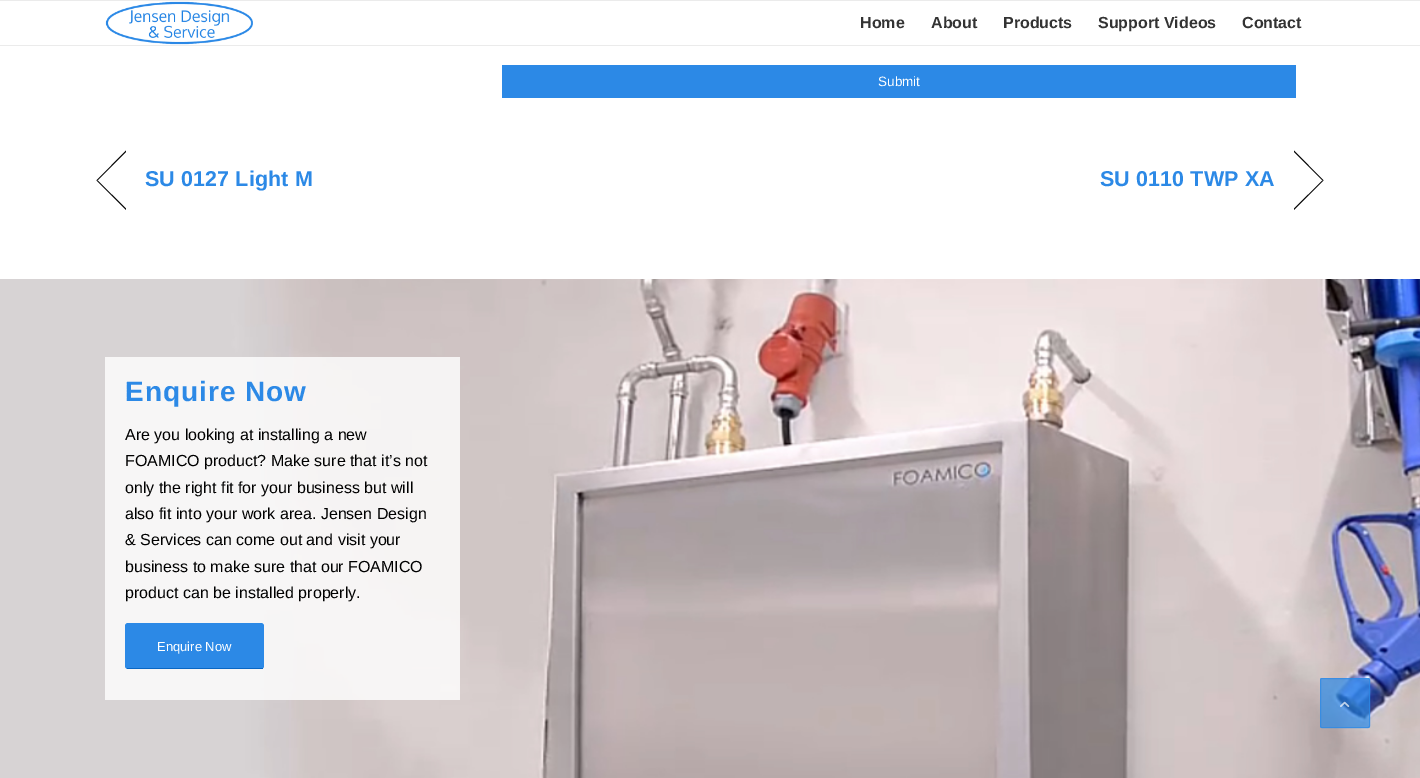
%!PS-Adobe-3.0
%%BoundingBox: 0 0 1420 778
%%LanguageLevel: 3
%%Pages: 1
%%EndComments
%%BeginProlog
/setink { 3 { 255 div 3 1 roll } repeat setrgbcolor } def
/usefont { [ exch dup neg 0 0 3 -1 roll 0 0 ] selectfont } def
/drawtext { setink usefont moveto show } def
/fillbox { setink rectfill } def
/setalpha { dup .setfillconstantalpha .setstrokeconstantalpha } def
/rrect { 5 dict begin { /r /h /w /y /x } { exch def } forall
  x r add y moveto x w add y 2 copy h add r arct x w add y h add x 1 index r arct
  x y h add x y r arct x y 2 copy exch w add exch r arct closepath end } def
/drawimage { 5 dict begin { /h /w /y /x /name } { exch def } forall
  gsave x y translate w h scale
  w h 8 [w 0 0 h 0 0] name (r) file false 3 colorimage grestore end } def
%%EndProlog
%%BeginSetup
<< /PageSize [1420 778] /PageUsesTransparency true >> setpagedevice
%%EndSetup
%%Page: 1 1
0 .pushpdf14devicefilter
0 778 translate 1 -1 scale
4 setmiterlimit
0 0 1420 778 255 255 255 fillbox
0 0 1420 1 235 235 235 fillbox
0 45 1420 1 235 235 235 fillbox
(assets/img1.rgb) 105 1 148 44 drawimage
(Home) 860 28 /LiberationSans-Bold 16 51 51 51 drawtext
(About) 931 28 /LiberationSans-Bold 16 51 51 51 drawtext
(Products) 1003 28 /LiberationSans-Bold 16 51 51 51 drawtext
(Support Videos) 1098 28 /LiberationSans-Bold 16 51 51 51 drawtext
(Contact) 1242 28 /LiberationSans-Bold 16 51 51 51 drawtext
502 65 794 33 44 137 230 fillbox
(Submit) 878 86 /LiberationSans-Regular 13.5 255 255 255 drawtext
0 0 0 setink
126 210 moveto 96.5 180.5 lineto 97.5 180.5 lineto 126 208.5 lineto closepath fill
96.5 180.5 moveto 126 150.5 lineto 126 152 lineto 97.5 180.5 lineto closepath fill
/LiberationSans-Bold 21.5 usefont
44 137 230 setink
145 186 moveto 0.1 0 (SU 0127 Light M) ashow
1100 186 moveto 0.1 0 (SU 0110 TWP XA) ashow
0 0 0 setink
1294 150.5 moveto 1323.5 180.5 lineto 1322.5 180.5 lineto 1294 152 lineto closepath fill
1323.5 180.5 moveto 1294 210 lineto 1294 208.5 lineto 1322.5 180.5 lineto closepath fill
(assets/img2.rgb) 0 279 1420 499 drawimage
0.8 setalpha
105 357 355 343 255 255 255 fillbox
/LiberationSans-Bold 28 usefont
1 setalpha
44 137 230 setink
125 401 moveto 1 0 (Enquire Now) ashow
(Are you looking at installing a new) 125 440 /LiberationSans-Regular 16 0 0 0 drawtext
(FOAMICO product? Make sure that it’s not) 125 466 /LiberationSans-Regular 16 0 0 0 drawtext
(only the right fit for your business but will) 125 493 /LiberationSans-Regular 16 0 0 0 drawtext
(also fit into your work area. Jensen Design) 125 519 /LiberationSans-Regular 16 0 0 0 drawtext
(& Services can come out and visit your) 125 545 /LiberationSans-Regular 16 0 0 0 drawtext
(business to make sure that our FOAMICO) 125 572 /LiberationSans-Regular 16 0 0 0 drawtext
(product can be installed properly.) 125 598 /LiberationSans-Regular 16 0 0 0 drawtext
44 137 230 setink
125 623 139 46 3 rrect fill
127 668 136 1 10 103 196 fillbox
(Enquire Now) 157 651 /LiberationSans-Regular 13 255 255 255 drawtext
0.7 setalpha
44 137 230 setink
1320 678 50 50 2 rrect fill
1320.5 678.5 49 49 1.5 rrect stroke
1 setalpha
(assets/img3.rgb) 1340 701 10 7 drawimage
.poppdf14devicefilter showpage
%%EOF
